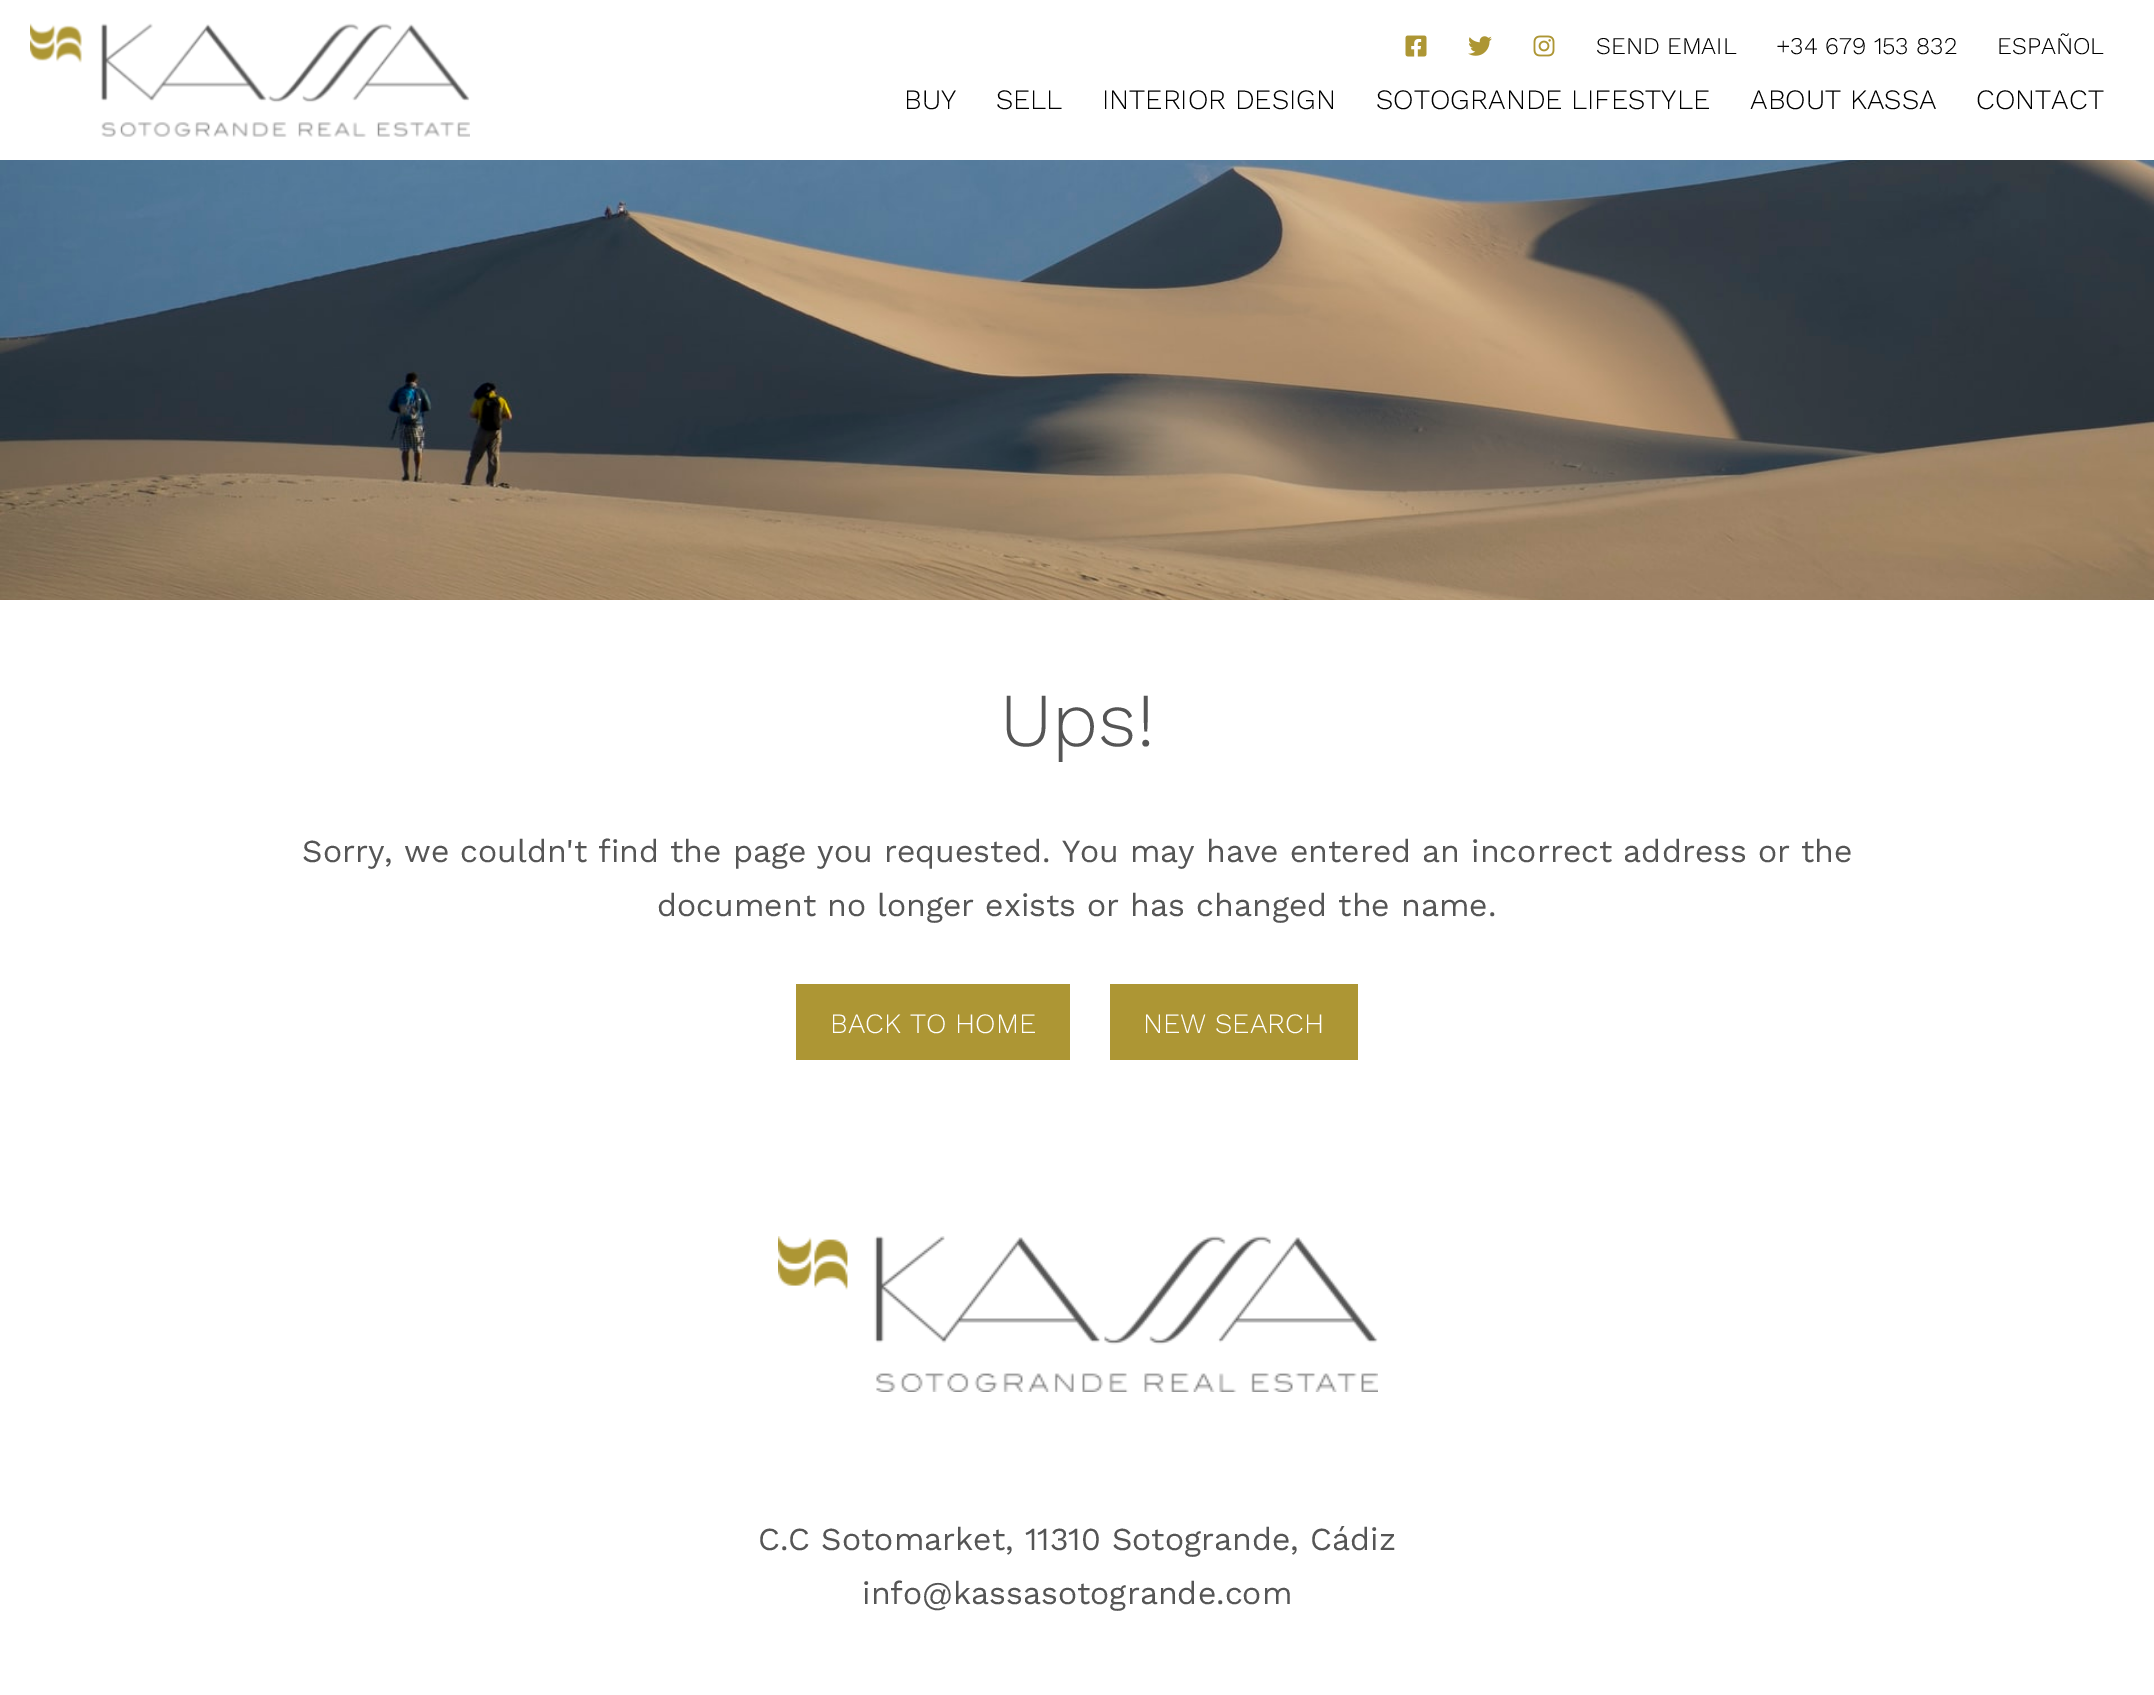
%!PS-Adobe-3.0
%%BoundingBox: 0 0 2154 1695
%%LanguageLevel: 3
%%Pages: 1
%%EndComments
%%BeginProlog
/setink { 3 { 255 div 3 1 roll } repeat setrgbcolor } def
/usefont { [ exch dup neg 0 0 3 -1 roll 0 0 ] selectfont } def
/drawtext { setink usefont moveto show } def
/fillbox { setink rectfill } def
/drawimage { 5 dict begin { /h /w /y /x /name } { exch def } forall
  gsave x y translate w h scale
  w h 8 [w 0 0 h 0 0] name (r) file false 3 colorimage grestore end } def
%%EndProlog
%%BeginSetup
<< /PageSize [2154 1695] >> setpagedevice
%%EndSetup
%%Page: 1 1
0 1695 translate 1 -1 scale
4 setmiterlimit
0 0 2154 1695 255 255 255 fillbox
(assets/img1.rgb) 30 23 440 114 drawimage
(assets/img2.rgb) 1405 35 22 22 drawimage
(assets/img3.rgb) 1468 36 24 20 drawimage
(assets/img4.rgb) 1533 35 22 22 drawimage
(SEND EMAIL) 1596 54 /WorkSans-Light 24 0 0 0 drawtext
(+34 679 153 832) 1776 54 /WorkSans-Light 24 0 0 0 drawtext
(ESPAÑOL) 1997 54 /WorkSans-Light 24 0 0 0 drawtext
(BUY) 904 109 /WorkSans-Light 28 0 0 0 drawtext
(SELL) 996 109 /WorkSans-Light 28 0 0 0 drawtext
(INTERIOR DESIGN) 1102 109 /WorkSans-Light 28 0 0 0 drawtext
(SOTOGRANDE LIFESTYLE) 1376 109 /WorkSans-Light 28 0 0 0 drawtext
(ABOUT KASSA) 1750 109 /WorkSans-Light 28 0 0 0 drawtext
(CONTACT) 1976 109 /WorkSans-Light 28 0 0 0 drawtext
(assets/img5.rgb) 0 160 2154 440 drawimage
(Ups!) 1000 746 /WorkSans-Light 76 85 85 85 drawtext
(Sorry, we couldn't find the page you requested. You may have entered an incorrect address or the) 302 862 /WorkSans-Regular 32 85 85 85 drawtext
(document no longer exists or has changed the name.) 657 916 /WorkSans-Regular 32 85 85 85 drawtext
796 984 274 76 173 150 52 fillbox
(BACK TO HOME) 830 1033 /WorkSans-Light 28 255 255 255 drawtext
1110 984 248 76 173 150 52 fillbox
(NEW SEARCH) 1143 1033 /WorkSans-Light 28 255 255 255 drawtext
(assets/img6.rgb) 778 1236 600 156 drawimage
(C.C Sotomarket, 11310 Sotogrande, Cádiz) 758 1550 /WorkSans-Regular 32 85 85 85 drawtext
(info@kassasotogrande.com) 862 1604 /WorkSans-Regular 32 85 85 85 drawtext
showpage
%%EOF
